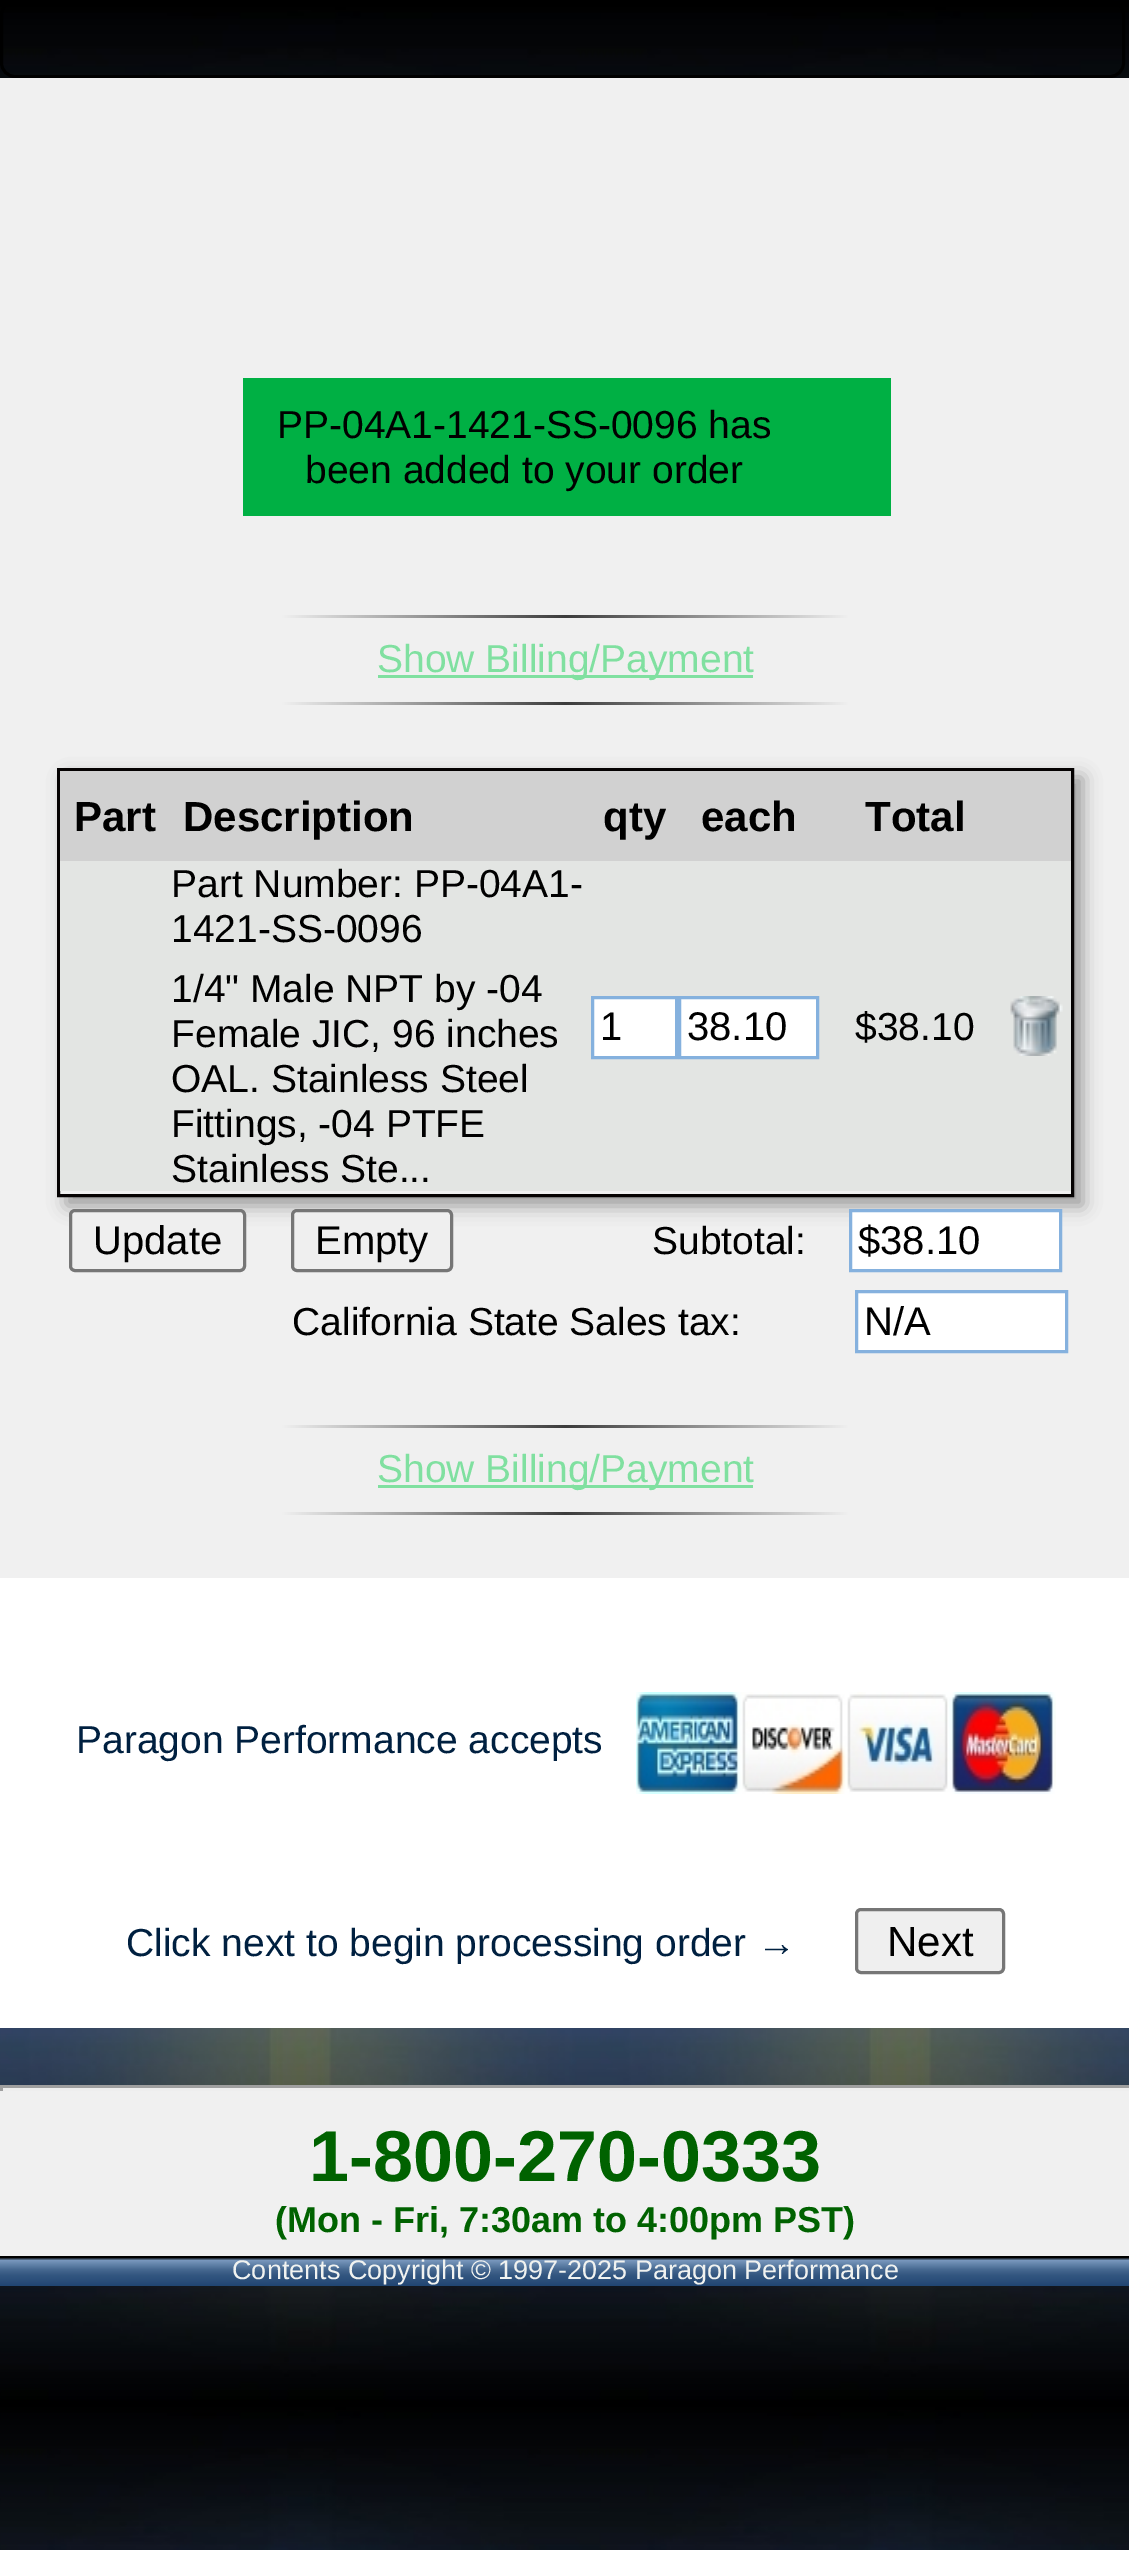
%!PS-Adobe-3.0
%%BoundingBox: 0 0 1129 2550
%%LanguageLevel: 3
%%Pages: 1
%%EndComments
%%BeginProlog
/setink { 3 { 255 div 3 1 roll } repeat setrgbcolor } def
/usefont { [ exch dup neg 0 0 3 -1 roll 0 0 ] selectfont } def
/drawtext { setink usefont moveto show } def
/fillbox { setink rectfill } def
/setalpha { dup .setfillconstantalpha .setstrokeconstantalpha } def
/rrect { 5 dict begin { /r /h /w /y /x } { exch def } forall
  x r add y moveto x w add y 2 copy h add r arct x w add y h add x 1 index r arct
  x y h add x y r arct x y 2 copy exch w add exch r arct closepath end } def
/softshadow { 12 dict begin { /a /b /q /h /w /y /x } { exch def } forall gsave /was 0 def
  9 -2 -9 { dup b mul 4 div /e exch def 1 sub .425 mul 2.718 exch exp 1 add a .99 .min exch div /now exch def
    1 1 now sub 1 was sub div sub setalpha /was now def
    w h .min e 2 mul add 0 gt { x e sub y e sub w e 2 mul add h e 2 mul add
      q e add b .6 mul add w h .min 2 div e add .min 0 .max rrect fill } if } for grestore end } def
/drawimage { 5 dict begin { /h /w /y /x /name } { exch def } forall
  gsave x y translate w h scale
  w h 8 [w 0 0 h 0 0] name (r) file false 3 colorimage grestore end } def
%%EndProlog
%%BeginSetup
<< /PageSize [1129 2550] /PageUsesTransparency true >> setpagedevice
%%EndSetup
%%Page: 1 1
0 .pushpdf14devicefilter
0 2550 translate 1 -1 scale
4 setmiterlimit
0 0 1129 2550 255 255 255 fillbox
(assets/img1.rgb) 0 0 1129 2550 drawimage
0 0 0 setink
3 setlinewidth
1.5 1.5 1122 75 13.5 rrect stroke
0 1578 1129 450 255 255 255 fillbox
0 78 1129 1500 240 240 240 fillbox
243 378 648 138 0 176 68 fillbox
(PP-04A1-1421-SS-0096 has) 277 438 /LiberationSans-Regular 39 0 0 0 drawtext
(been added to your order) 305 483 /LiberationSans-Regular 39 0 0 0 drawtext
gsave 282 615 moveto 849 615 lineto 849 618 lineto 282 618 lineto closepath clip newpath
<< /ShadingType 2 /ColorSpace /DeviceRGB /Coords [282 617 849 617] /Extend [true true] /Function << /FunctionType 3 /Domain [0 1] /Functions [<< /FunctionType 2 /Domain [0 1] /C0 [0.941 0.941 0.941] /C1 [0.235 0.235 0.235] /N 1 >> << /FunctionType 2 /Domain [0 1] /C0 [0.235 0.235 0.235] /C1 [0.941 0.941 0.941] /N 1 >>] /Bounds [0.5] /Encode [0 1 0 1] >> >> shfill grestore
378 675 375 3 128 224 160 fillbox
(Show Billing/Payment) 377 672 /LiberationSans-Regular 39 128 224 160 drawtext
gsave 282 702 moveto 849 702 lineto 849 705 lineto 282 705 lineto closepath clip newpath
<< /ShadingType 2 /ColorSpace /DeviceRGB /Coords [282 704 849 704] /Extend [true true] /Function << /FunctionType 3 /Domain [0 1] /Functions [<< /FunctionType 2 /Domain [0 1] /C0 [0.941 0.941 0.941] /C1 [0.235 0.235 0.235] /N 1 >> << /FunctionType 2 /Domain [0 1] /C0 [0.235 0.235 0.235] /C1 [0.941 0.941 0.941] /N 1 >>] /Bounds [0.5] /Encode [0 1 0 1] >> >> shfill grestore
gsave
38 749 moveto 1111 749 lineto 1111 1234 lineto 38 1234 lineto closepath 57 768 moveto 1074 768 lineto 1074 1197 lineto 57 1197 lineto closepath eoclip newpath
153 153 153 setink
66 777 1017 429 0 9 1 softshadow
grestore
5 2 2 setink
58.5 769.5 1014 426 rectstroke
60 771 1011 90 209 209 209 fillbox
(Part) 74 831 /LiberationSans-Bold 42 0 0 0 drawtext
(Description) 183 831 /LiberationSans-Bold 42 0 0 0 drawtext
(qty) 603 831 /LiberationSans-Bold 42 0 0 0 drawtext
(each) 701 831 /LiberationSans-Bold 42 0 0 0 drawtext
(Total) 865 831 /LiberationSans-Bold 42 0 0 0 drawtext
60 861 1011 330 227 229 227 fillbox
(Part Number: PP-04A1-) 171 897 /LiberationSans-Regular 39 0 0 0 drawtext
(1421-SS-0096) 171 942 /LiberationSans-Regular 39 0 0 0 drawtext
(1/4" Male NPT by -04) 171 1002 /LiberationSans-Regular 39 0 0 0 drawtext
(Female JIC, 96 inches) 171 1047 /LiberationSans-Regular 39 0 0 0 drawtext
(OAL. Stainless Steel) 171 1092 /LiberationSans-Regular 39 0 0 0 drawtext
(Fittings, -04 PTFE) 171 1137 /LiberationSans-Regular 39 0 0 0 drawtext
(Stainless Ste...) 171 1182 /LiberationSans-Regular 39 0 0 0 drawtext
255 255 255 setink
592.5 997.5 moveto 676.5 997.5 lineto 676.5 1057.5 lineto 592.5 1057.5 lineto closepath gsave fill grestore
133 177 222 setink
stroke
(1) 600 1040 /LiberationSans-Regular 40 0 0 0 drawtext
255 255 255 setink
679.5 997.5 moveto 817.5 997.5 lineto 817.5 1057.5 lineto 679.5 1057.5 lineto closepath gsave fill grestore
133 177 222 setink
stroke
(38.10) 687 1040 /LiberationSans-Regular 40 0 0 0 drawtext
($38.10) 855 1040 /LiberationSans-Regular 39 0 0 0 drawtext
(assets/img2.rgb) 1010 996 53 60 drawimage
239 239 239 setink
70.5 1210.5 174 60 4.5 rrect gsave fill grestore
118 118 118 setink
stroke
(Update) 93 1254 /LiberationSans-Regular 40 0 0 0 drawtext
239 239 239 setink
292.5 1210.5 159 60 4.5 rrect gsave fill grestore
118 118 118 setink
stroke
(Empty) 315 1254 /LiberationSans-Regular 40 0 0 0 drawtext
(Subtotal:) 652 1254 /LiberationSans-Regular 39 0 0 0 drawtext
255 255 255 setink
850.5 1210.5 moveto 1060.5 1210.5 lineto 1060.5 1270.5 lineto 850.5 1270.5 lineto closepath gsave fill grestore
133 177 222 setink
stroke
($38.10) 858 1254 /LiberationSans-Regular 40 0 0 0 drawtext
(California State Sales tax:) 292 1335 /LiberationSans-Regular 39 0 0 0 drawtext
255 255 255 setink
856.5 1291.5 moveto 1066.5 1291.5 lineto 1066.5 1351.5 lineto 856.5 1351.5 lineto closepath gsave fill grestore
133 177 222 setink
stroke
(N/A) 864 1335 /LiberationSans-Regular 40 0 0 0 drawtext
gsave 282 1425 moveto 849 1425 lineto 849 1428 lineto 282 1428 lineto closepath clip newpath
<< /ShadingType 2 /ColorSpace /DeviceRGB /Coords [282 1427 849 1427] /Extend [true true] /Function << /FunctionType 3 /Domain [0 1] /Functions [<< /FunctionType 2 /Domain [0 1] /C0 [0.941 0.941 0.941] /C1 [0.235 0.235 0.235] /N 1 >> << /FunctionType 2 /Domain [0 1] /C0 [0.235 0.235 0.235] /C1 [0.941 0.941 0.941] /N 1 >>] /Bounds [0.5] /Encode [0 1 0 1] >> >> shfill grestore
378 1485 375 3 128 224 160 fillbox
(Show Billing/Payment) 377 1482 /LiberationSans-Regular 39 128 224 160 drawtext
gsave 282 1512 moveto 849 1512 lineto 849 1515 lineto 282 1515 lineto closepath clip newpath
<< /ShadingType 2 /ColorSpace /DeviceRGB /Coords [282 1514 849 1514] /Extend [true true] /Function << /FunctionType 3 /Domain [0 1] /Functions [<< /FunctionType 2 /Domain [0 1] /C0 [0.941 0.941 0.941] /C1 [0.235 0.235 0.235] /N 1 >> << /FunctionType 2 /Domain [0 1] /C0 [0.235 0.235 0.235] /C1 [0.941 0.941 0.941] /N 1 >>] /Bounds [0.5] /Encode [0 1 0 1] >> >> shfill grestore
(Paragon Performance accepts) 76 1753 /LiberationSans-Regular 39 0 32 64 drawtext
(assets/img3.rgb) 636 1692 420 102 drawimage
(Click next to begin processing order →) 126 1956 /LiberationSans-Regular 39 0 32 64 drawtext
239 239 239 setink
856.5 1909.5 147 63 4.5 rrect gsave fill grestore
118 118 118 setink
stroke
(Next) 887 1956 /LiberationSans-Regular 42 0 0 0 drawtext
0 2091 1129 165 240 240 240 fillbox
0 2085 1129 3 159 159 159 fillbox
0 2088 1129 3 238 238 238 fillbox
0 2085 3 6 159 159 159 fillbox
(1-800-270-0333) 309 2181 /LiberationSans-Bold 72 0 98 0 drawtext
(\(Mon - Fri, 7:30am to 4:00pm PST\)) 275 2232 /LiberationSans-Bold 36 0 98 0 drawtext
(assets/img4.rgb) 0 2256 1129 30 drawimage
(Contents Copyright © 1997-2025 Paragon Performance) 232 2279 /LiberationSans-Regular 27 240 242 240 drawtext
.poppdf14devicefilter showpage
%%EOF
